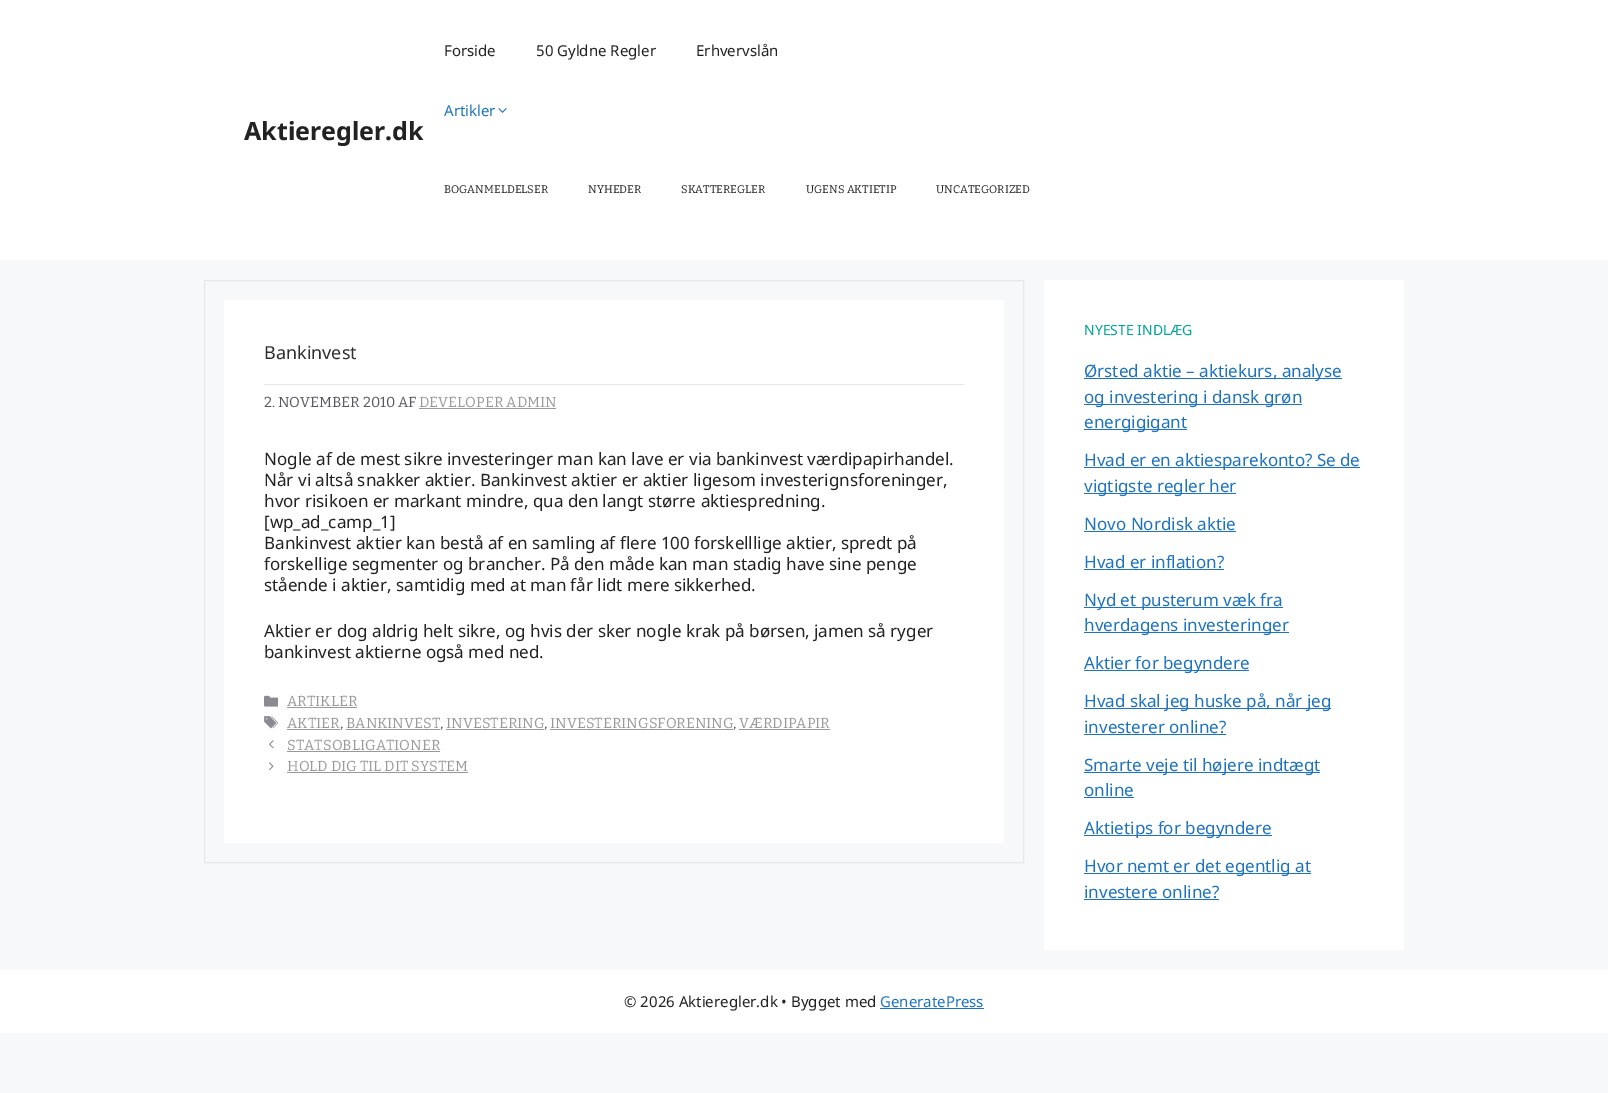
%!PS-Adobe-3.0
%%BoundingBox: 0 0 1608 1093
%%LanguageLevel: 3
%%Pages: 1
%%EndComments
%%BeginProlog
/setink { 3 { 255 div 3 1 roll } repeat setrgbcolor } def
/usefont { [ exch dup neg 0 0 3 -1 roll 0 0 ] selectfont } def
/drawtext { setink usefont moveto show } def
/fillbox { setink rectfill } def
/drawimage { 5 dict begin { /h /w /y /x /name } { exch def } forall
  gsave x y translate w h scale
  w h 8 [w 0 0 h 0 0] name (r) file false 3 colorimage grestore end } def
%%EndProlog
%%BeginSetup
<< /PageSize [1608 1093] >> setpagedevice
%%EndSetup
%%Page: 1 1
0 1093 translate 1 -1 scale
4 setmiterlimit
0 0 1608 1093 247 248 249 fillbox
0 0 1608 260 255 255 255 fillbox
(Aktieregler.dk) 244 140 /NotoSans-Bold 25 34 34 34 drawtext
(Forside) 444 56 /NotoSans-Regular 15 34 34 34 drawtext
(50 Gyldne Regler) 536 56 /NotoSans-Regular 15 34 34 34 drawtext
(Erhvervslån) 696 56 /NotoSans-Regular 15 34 34 34 drawtext
(Artikler) 444 116 /NotoSans-Regular 15 30 115 190 drawtext
(assets/img1.rgb) 498 108 9 5 drawimage
(BOGANMELDELSER) 444 193 /Bitter-Regular 11 34 34 34 drawtext
(NYHEDER) 588 193 /Bitter-Regular 11 34 34 34 drawtext
(SKATTEREGLER) 681 193 /Bitter-Regular 11 34 34 34 drawtext
(UGENS AKTIETIP) 806 193 /Bitter-Regular 11 34 34 34 drawtext
(UNCATEGORIZED) 936 193 /Bitter-Regular 11 34 34 34 drawtext
231 231 231 setink
204.5 280.5 819 582 rectstroke
224 300 780 543 255 255 255 fillbox
264 384 700 1 231 231 231 fillbox
(Bankinvest) 264 359 /NotoSans-Regular 18 47 47 47 drawtext
(2. NOVEMBER 2010 AF) 264 407 /Bitter-Regular 14.5 87 87 96 drawtext
(DEVELOPER ADMIN) 419 407 /Bitter-Regular 14.5 153 153 153 drawtext
419 408 137 1 153 153 153 fillbox
(Nogle af de mest sikre investeringer man kan lave er via bankinvest værdipapirhandel.) 264 465 /NotoSans-Regular 17 34 34 34 drawtext
(Når vi altså snakker aktier. Bankinvest aktier er aktier ligesom investerignsforeninger,) 264 486 /NotoSans-Regular 17 34 34 34 drawtext
(hvor risikoen er markant mindre, qua den langt større aktiespredning.) 264 507 /NotoSans-Regular 17 34 34 34 drawtext
([wp_ad_camp_1]) 264 528 /NotoSans-Regular 17 34 34 34 drawtext
(Bankinvest aktier kan bestå af en samling af flere 100 forskelllige aktier, spredt på) 264 549 /NotoSans-Regular 17 34 34 34 drawtext
(forskellige segmenter og brancher. På den måde kan man stadig have sine penge) 264 570 /NotoSans-Regular 17 34 34 34 drawtext
(stående i aktier, samtidig med at man får lidt mere sikkerhed.) 264 591 /NotoSans-Regular 17 34 34 34 drawtext
(Aktier er dog aldrig helt sikre, og hvis der sker nogle krak på børsen, jamen så ryger) 264 637 /NotoSans-Regular 17 34 34 34 drawtext
(bankinvest aktierne også med ned.) 264 658 /NotoSans-Regular 17 34 34 34 drawtext
(assets/img2.rgb) 264 695 14 12 drawimage
(ARTIKLER) 287 706 /Bitter-Regular 14.5 153 153 153 drawtext
287 707 70 1 153 153 153 fillbox
(assets/img3.rgb) 264 716 14 13 drawimage
(AKTIER) 287 728 /Bitter-Regular 14.5 153 153 153 drawtext
287 729 53 1 153 153 153 fillbox
(BANKINVEST) 346 728 /Bitter-Regular 14.5 153 153 153 drawtext
346 729 94 1 153 153 153 fillbox
(INVESTERING) 446 728 /Bitter-Regular 14.5 153 153 153 drawtext
446 729 98 1 153 153 153 fillbox
(INVESTERINGSFORENING) 550 728 /Bitter-Regular 14.5 153 153 153 drawtext
550 729 183 1 153 153 153 fillbox
(VÆRDIPAPIR) 739 728 /Bitter-Regular 14.5 153 153 153 drawtext
739 729 91 1 153 153 153 fillbox
(,) 340 728 /Bitter-Regular 14.5 87 87 96 drawtext
(,) 440 728 /Bitter-Regular 14.5 87 87 96 drawtext
(,) 544 728 /Bitter-Regular 14.5 87 87 96 drawtext
(,) 733 728 /Bitter-Regular 14.5 87 87 96 drawtext
(assets/img4.rgb) 269 740 5 9 drawimage
(STATSOBLIGATIONER) 287 750 /Bitter-Regular 14.5 153 153 153 drawtext
287 751 153 1 153 153 153 fillbox
(assets/img5.rgb) 269 762 5 9 drawimage
(HOLD DIG TIL DIT SYSTEM) 287 771 /Bitter-Regular 14.5 153 153 153 drawtext
287 772 181 1 153 153 153 fillbox
1044 280 360 670 255 255 255 fillbox
(NYESTE INDLÆG) 1084 335 /NotoSans-Regular 14 0 164 152 drawtext
1084 378 258 1 30 115 190 fillbox
(Ørsted aktie – aktiekurs, analyse) 1084 377 /NotoSans-Regular 17 30 115 190 drawtext
1084 404 218 1 30 115 190 fillbox
(og investering i dansk grøn) 1084 403 /NotoSans-Regular 17 30 115 190 drawtext
1084 429 103 1 30 115 190 fillbox
(energigigant) 1084 428 /NotoSans-Regular 17 30 115 190 drawtext
1084 467 276 1 30 115 190 fillbox
(Hvad er en aktiesparekonto? Se de) 1084 466 /NotoSans-Regular 17 30 115 190 drawtext
1084 493 152 1 30 115 190 fillbox
(vigtigste regler her) 1084 492 /NotoSans-Regular 17 30 115 190 drawtext
(Novo Nordisk aktie) 1084 530 /NotoSans-Regular 17 30 115 190 drawtext
1084 531 152 1 30 115 190 fillbox
(Hvad er inflation?) 1084 568 /NotoSans-Regular 17 30 115 190 drawtext
1084 569 140 1 30 115 190 fillbox
1084 607 199 1 30 115 190 fillbox
(Nyd et pusterum væk fra) 1084 606 /NotoSans-Regular 17 30 115 190 drawtext
1084 632 205 1 30 115 190 fillbox
(hverdagens investeringer) 1084 631 /NotoSans-Regular 17 30 115 190 drawtext
1084 670 165 1 30 115 190 fillbox
(Aktier for begyndere) 1084 669 /NotoSans-Regular 17 30 115 190 drawtext
1084 708 247 1 30 115 190 fillbox
(Hvad skal jeg huske på, når jeg) 1084 707 /NotoSans-Regular 17 30 115 190 drawtext
(investerer online?) 1084 733 /NotoSans-Regular 17 30 115 190 drawtext
1084 734 142 1 30 115 190 fillbox
1084 772 236 1 30 115 190 fillbox
(Smarte veje til højere indtægt) 1084 771 /NotoSans-Regular 17 30 115 190 drawtext
(online) 1084 796 /NotoSans-Regular 17 30 115 190 drawtext
1084 797 50 1 30 115 190 fillbox
1084 835 188 1 30 115 190 fillbox
(Aktietips for begyndere) 1084 834 /NotoSans-Regular 17 30 115 190 drawtext
1084 873 227 1 30 115 190 fillbox
(Hvor nemt er det egentlig at) 1084 872 /NotoSans-Regular 17 30 115 190 drawtext
(investere online?) 1084 898 /NotoSans-Regular 17 30 115 190 drawtext
1084 899 135 1 30 115 190 fillbox
0 970 1608 63 255 255 255 fillbox
(© 2026 Aktieregler.dk • Bygget med) 624 1007 /NotoSans-Regular 15 34 34 34 drawtext
(GeneratePress) 880 1007 /NotoSans-Regular 15 30 115 190 drawtext
880 1008 104 1 30 115 190 fillbox
showpage
%%EOF
